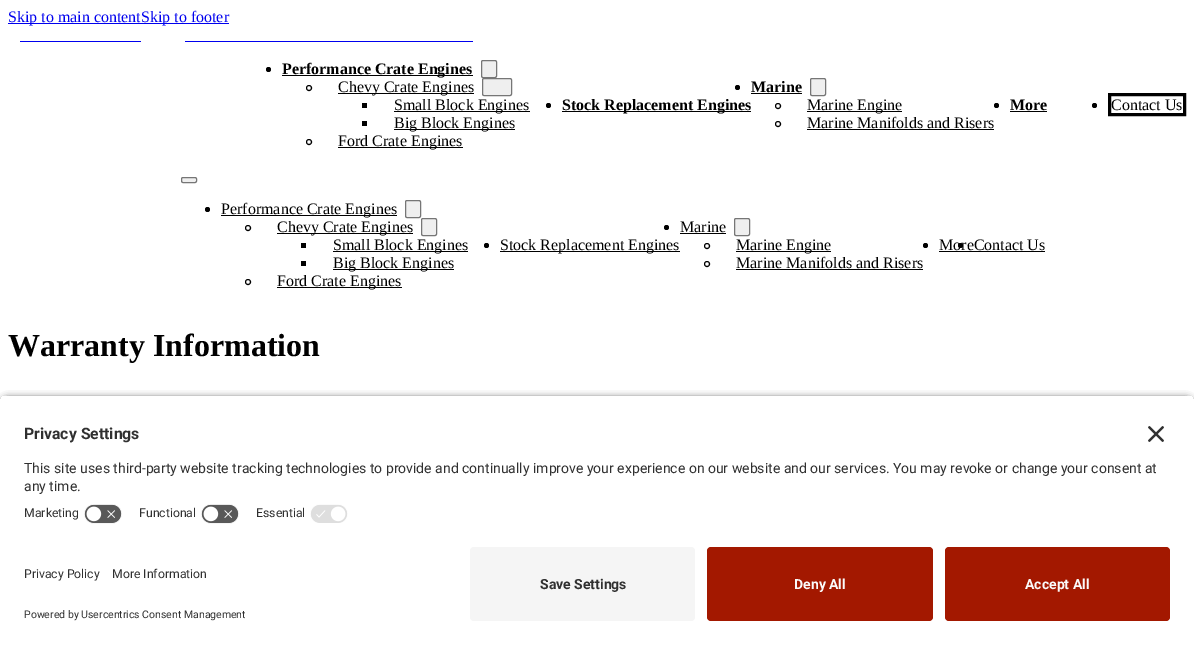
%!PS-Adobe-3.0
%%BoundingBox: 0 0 1194 645
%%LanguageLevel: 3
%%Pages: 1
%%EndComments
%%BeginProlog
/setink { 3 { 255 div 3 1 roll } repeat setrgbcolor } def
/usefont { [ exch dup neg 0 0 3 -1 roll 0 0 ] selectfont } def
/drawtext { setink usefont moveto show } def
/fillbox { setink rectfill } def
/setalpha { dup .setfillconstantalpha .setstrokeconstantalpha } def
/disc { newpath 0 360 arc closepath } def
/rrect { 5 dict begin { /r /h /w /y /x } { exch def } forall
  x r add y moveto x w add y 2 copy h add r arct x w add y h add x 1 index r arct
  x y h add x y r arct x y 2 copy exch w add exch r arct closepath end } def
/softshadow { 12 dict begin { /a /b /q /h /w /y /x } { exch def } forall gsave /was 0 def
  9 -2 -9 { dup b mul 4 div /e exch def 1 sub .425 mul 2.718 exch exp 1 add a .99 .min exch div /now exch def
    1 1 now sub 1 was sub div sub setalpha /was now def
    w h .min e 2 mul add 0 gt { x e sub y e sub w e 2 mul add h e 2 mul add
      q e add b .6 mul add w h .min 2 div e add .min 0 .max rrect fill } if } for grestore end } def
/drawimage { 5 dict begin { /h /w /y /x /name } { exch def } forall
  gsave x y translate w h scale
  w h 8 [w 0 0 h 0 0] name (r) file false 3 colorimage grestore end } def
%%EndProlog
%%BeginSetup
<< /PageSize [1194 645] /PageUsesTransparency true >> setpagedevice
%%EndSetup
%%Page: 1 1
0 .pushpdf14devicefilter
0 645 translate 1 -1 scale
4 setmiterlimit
0 0 1194 645 255 255 255 fillbox
8 23 221 1 0 0 238 fillbox
(Skip to main contentSkip to footer) 8 22 /LiberationSerif-Regular 16 0 0 238 drawtext
20 41 121 1 0 0 238 fillbox
185 41 288 1 0 0 238 fillbox
0 0 0 setink
268.5 69.5 2.5 disc fill
282 75 191 1 0 0 0 fillbox
(Performance Crate Engines) 282 74 /LiberationSerif-Bold 16 0 0 0 drawtext
239 239 239 setink
481.5 60.5 15 17 1.5 rrect gsave fill grestore
118 118 118 setink
stroke
0 0 0 setink
309 88 2.5 disc stroke
338 93 136 1 0 0 0 fillbox
(Chevy Crate Engines) 338 92 /LiberationSerif-Regular 16 0 0 0 drawtext
239 239 239 setink
482.5 78.5 29 17 1.5 rrect gsave fill grestore
118 118 118 setink
stroke
362 103 5 5 0 0 0 fillbox
394 111 136 1 0 0 0 fillbox
(Small Block Engines) 394 110 /LiberationSerif-Regular 16 0 0 0 drawtext
362 121 5 5 0 0 0 fillbox
394 129 121 1 0 0 0 fillbox
(Big Block Engines) 394 128 /LiberationSerif-Regular 16 0 0 0 drawtext
309 142 2.5 disc stroke
338 147 125 1 0 0 0 fillbox
(Ford Crate Engines) 338 146 /LiberationSerif-Regular 16 0 0 0 drawtext
548.5 105.5 2.5 disc fill
562 111 189 1 0 0 0 fillbox
(Stock Replacement Engines) 562 110 /LiberationSerif-Bold 16 0 0 0 drawtext
737.5 87.5 2.5 disc fill
(Marine) 751 92 /LiberationSerif-Bold 16 0 0 0 drawtext
751 93 51 1 0 0 0 fillbox
239 239 239 setink
810.5 78.5 15 17 1.5 rrect gsave fill grestore
118 118 118 setink
stroke
0 0 0 setink
778 106 2.5 disc stroke
807 111 95 1 0 0 0 fillbox
(Marine Engine) 807 110 /LiberationSerif-Regular 16 0 0 0 drawtext
778 124 2.5 disc stroke
(Marine Manifolds and Risers) 807 128 /LiberationSerif-Regular 16 0 0 0 drawtext
807 129 187 1 0 0 0 fillbox
996.5 105.5 2.5 disc fill
(More) 1010 110 /LiberationSerif-Bold 16 0 0 0 drawtext
1010 111 37 1 0 0 0 fillbox
1094.5 105.5 2.5 disc fill
3 setlinewidth
1109.5 94.5 75 20 rectstroke
(Contact Us) 1111 110 /LiberationSerif-Regular 16 0 0 0 drawtext
239 239 239 setink
181.5 177.5 15 5 1.5 rrect gsave fill grestore
118 118 118 setink
1 setlinewidth
stroke
0 0 0 setink
207.5 209.5 2.5 disc fill
221 215 176 1 0 0 0 fillbox
(Performance Crate Engines) 221 214 /LiberationSerif-Regular 16 0 0 0 drawtext
239 239 239 setink
405.5 200.5 15 17 1.5 rrect gsave fill grestore
118 118 118 setink
stroke
0 0 0 setink
248 228 2.5 disc stroke
277 233 136 1 0 0 0 fillbox
(Chevy Crate Engines) 277 232 /LiberationSerif-Regular 16 0 0 0 drawtext
239 239 239 setink
421.5 218.5 15 17 1.5 rrect gsave fill grestore
118 118 118 setink
stroke
301 243 5 5 0 0 0 fillbox
333 251 135 1 0 0 0 fillbox
(Small Block Engines) 333 250 /LiberationSerif-Regular 16 0 0 0 drawtext
301 261 5 5 0 0 0 fillbox
333 269 121 1 0 0 0 fillbox
(Big Block Engines) 333 268 /LiberationSerif-Regular 16 0 0 0 drawtext
248 282 2.5 disc stroke
277 287 125 1 0 0 0 fillbox
(Ford Crate Engines) 277 286 /LiberationSerif-Regular 16 0 0 0 drawtext
486.5 245.5 2.5 disc fill
500 251 180 1 0 0 0 fillbox
(Stock Replacement Engines) 500 250 /LiberationSerif-Regular 16 0 0 0 drawtext
666.5 227.5 2.5 disc fill
(Marine) 680 232 /LiberationSerif-Regular 16 0 0 0 drawtext
680 233 46 1 0 0 0 fillbox
239 239 239 setink
734.5 218.5 15 17 1.5 rrect gsave fill grestore
118 118 118 setink
stroke
0 0 0 setink
707 246 2.5 disc stroke
736 251 95 1 0 0 0 fillbox
(Marine Engine) 736 250 /LiberationSerif-Regular 16 0 0 0 drawtext
707 264 2.5 disc stroke
(Marine Manifolds and Risers) 736 268 /LiberationSerif-Regular 16 0 0 0 drawtext
736 269 187 1 0 0 0 fillbox
925.5 245.5 2.5 disc fill
(MoreContact Us) 939 250 /LiberationSerif-Regular 16 0 0 0 drawtext
939 251 106 1 0 0 0 fillbox
960.5 245.5 2.5 disc fill
(Warranty Information) 8 356 /LiberationSerif-Bold 32 0 0 0 drawtext
0 398 1194 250 8 3.5 0.8 softshadow
gsave
8 395 moveto 1186 395 lineto 1190.5 395 1194 398.5 1194 403 curveto 1194 539 lineto 0 539 lineto 0 403 lineto 0 398.5 3.5 395 8 395 curveto closepath clip newpath
0 396 1194 143 255 255 255 fillbox
0 396 1194 103 255 255 255 fillbox
grestore
(Privacy Settings) 24 439 /Roboto-Bold 15.75 48 48 48 drawtext
(assets/img1.rgb) 1148 426 16 16 drawimage
(This site uses third-party website tracking technologies to provide and continually improve your experience on our website and our services. You may revoke or change your consent at) 24 473 /Roboto-Regular 14 48 48 48 drawtext
(any time.) 24 491 /Roboto-Regular 14 48 48 48 drawtext
(Marketing) 24 517 /Roboto-Regular 12.25 48 48 48 drawtext
(assets/img2.rgb) 84 504 38 20 drawimage
(Functional) 139 517 /Roboto-Regular 12.25 48 48 48 drawtext
(assets/img2.rgb) 201 504 38 20 drawimage
(Essential) 256 517 /Roboto-Regular 12.25 48 48 48 drawtext
(assets/img3.rgb) 310 504 38 19 drawimage
0 539 1194 106 255 255 255 fillbox
(Privacy Policy) 24 578 /Roboto-Regular 12.25 48 48 48 drawtext
(More Information) 112 578 /Roboto-Regular 12.25 48 48 48 drawtext
(Powered by Usercentrics Consent Management) 24 618 /Roboto-Regular 10.5 48 48 48 drawtext
245 245 245 setink
470 547 225 74 4 rrect fill
(Save Settings) 540 589 /Roboto-Bold 14 48 48 48 drawtext
163 24 0 setink
707 547 226 74 4 rrect fill
(Deny All) 794 589 /Roboto-Bold 14 250 250 250 drawtext
163 24 0 setink
945 547 225 74 4 rrect fill
(Accept All) 1025 589 /Roboto-Bold 14 250 250 250 drawtext
.poppdf14devicefilter showpage
%%EOF
